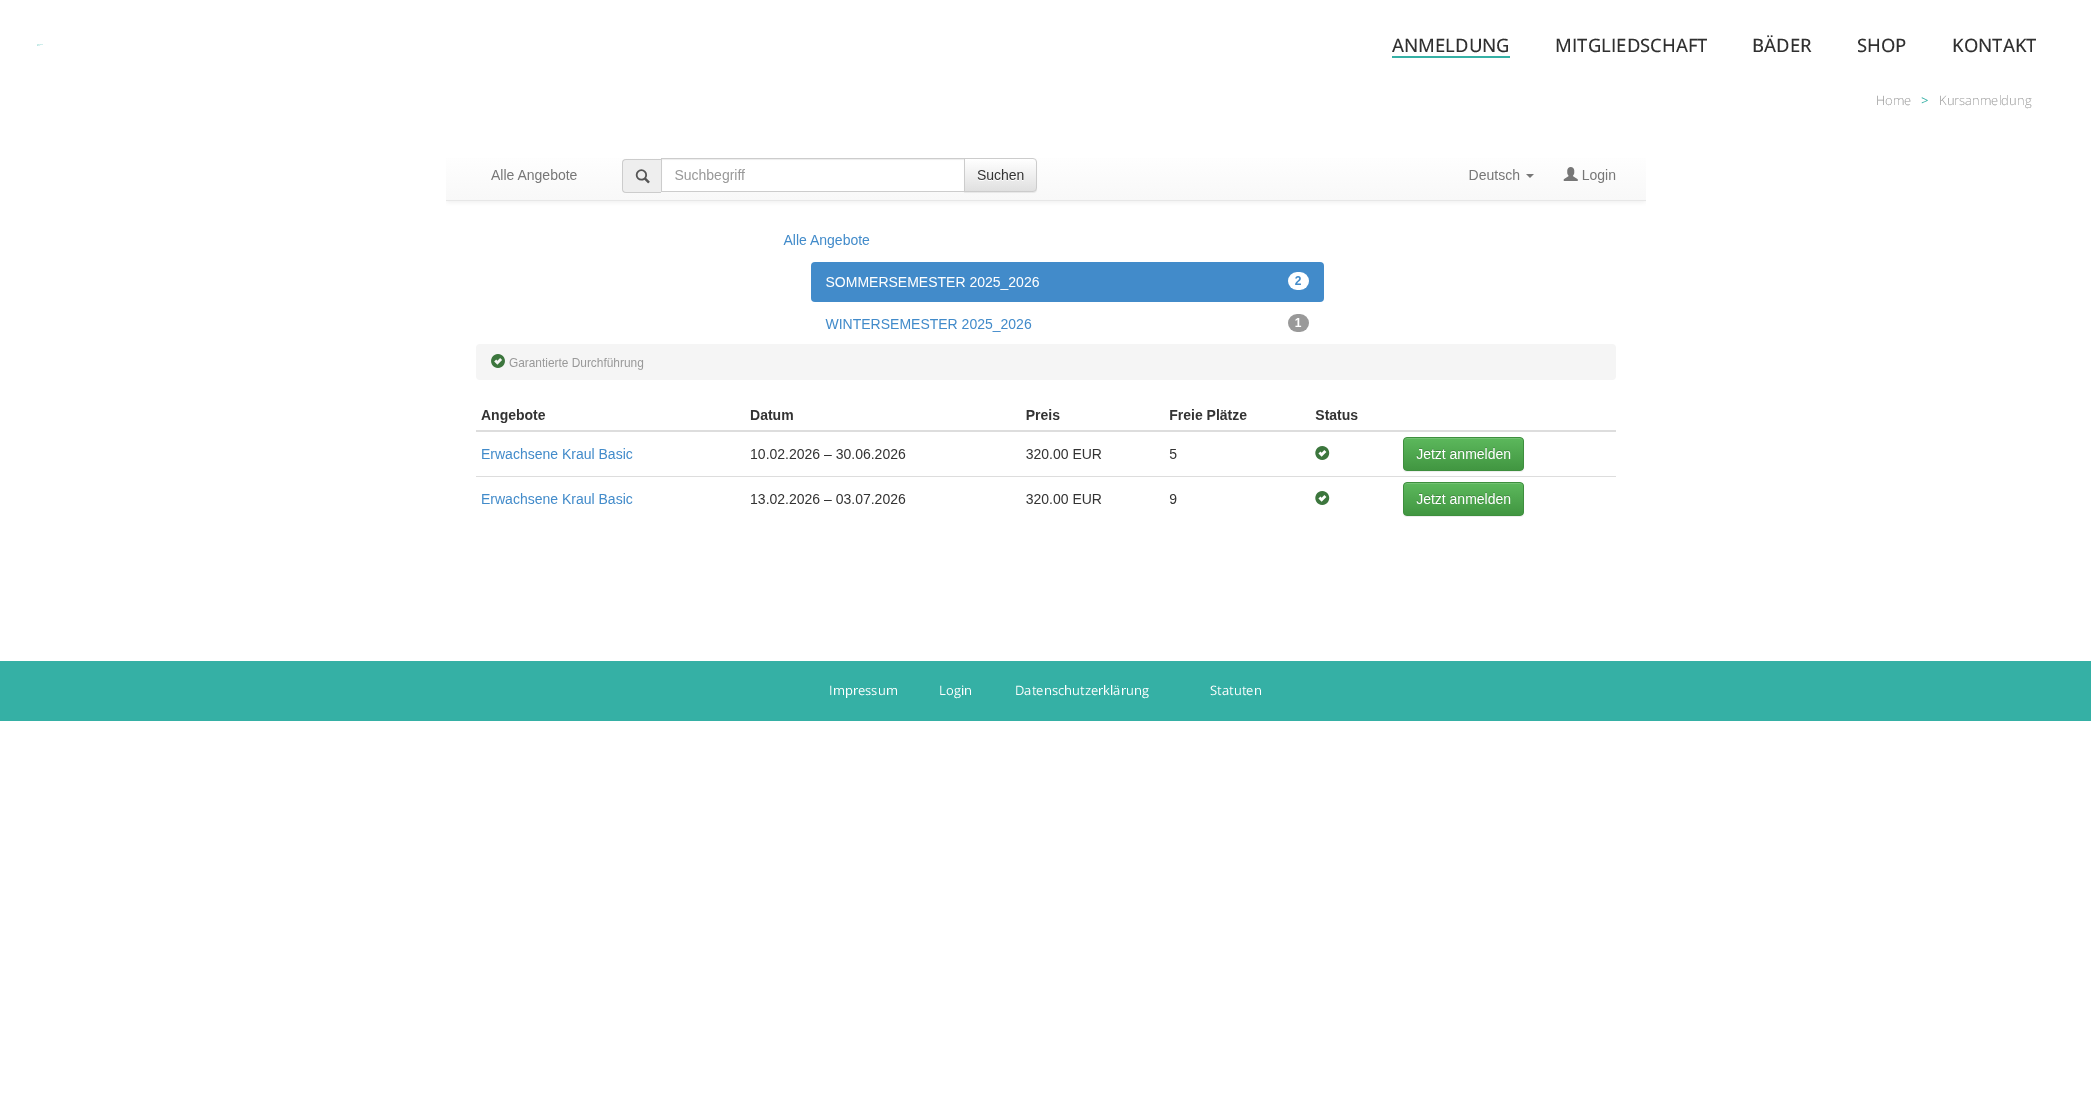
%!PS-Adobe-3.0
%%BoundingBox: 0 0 2091 1095
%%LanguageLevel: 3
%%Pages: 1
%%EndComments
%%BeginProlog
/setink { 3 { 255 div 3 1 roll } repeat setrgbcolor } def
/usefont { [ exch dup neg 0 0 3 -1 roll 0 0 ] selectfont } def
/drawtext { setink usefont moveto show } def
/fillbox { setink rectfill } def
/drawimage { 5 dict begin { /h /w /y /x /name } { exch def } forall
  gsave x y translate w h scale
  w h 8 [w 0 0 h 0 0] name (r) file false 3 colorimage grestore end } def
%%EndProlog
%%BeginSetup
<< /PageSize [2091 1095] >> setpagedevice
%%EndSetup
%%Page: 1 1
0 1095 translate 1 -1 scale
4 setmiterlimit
0 0 2091 1095 255 255 255 fillbox
(assets/img1.rgb) 37 44 6 2 drawimage
(ANMELDUNG) 1392 52 /OpenSans-Medium 18.5 48 48 48 drawtext
1392 56 118 2 53 176 165 fillbox
(MITGLIEDSCHAFT) 1555 52 /OpenSans-Medium 18.5 48 48 48 drawtext
(BÄDER) 1752 52 /OpenSans-Medium 18.5 48 48 48 drawtext
(SHOP) 1857 52 /OpenSans-Medium 18.5 48 48 48 drawtext
(KONTAKT) 1952 52 /OpenSans-Medium 18.5 48 48 48 drawtext
(Home) 1876 105 /OpenSans-Light 13 153 153 153 drawtext
(>) 1921 105 /OpenSans-Regular 13 53 176 165 drawtext
(Kursanmeldung) 1939 105 /OpenSans-Light 13 153 153 153 drawtext
(assets/img2.rgb) 446 158 1200 359 drawimage
0 661 2091 60 53 176 165 fillbox
(Impressum) 829 695 /OpenSans-Regular 13 255 255 255 drawtext
(Login) 939 695 /OpenSans-Regular 13 255 255 255 drawtext
(Datenschutzerklärung) 1015 695 /OpenSans-Regular 13 255 255 255 drawtext
(Statuten) 1210 695 /OpenSans-Regular 13 255 255 255 drawtext
showpage
%%EOF
